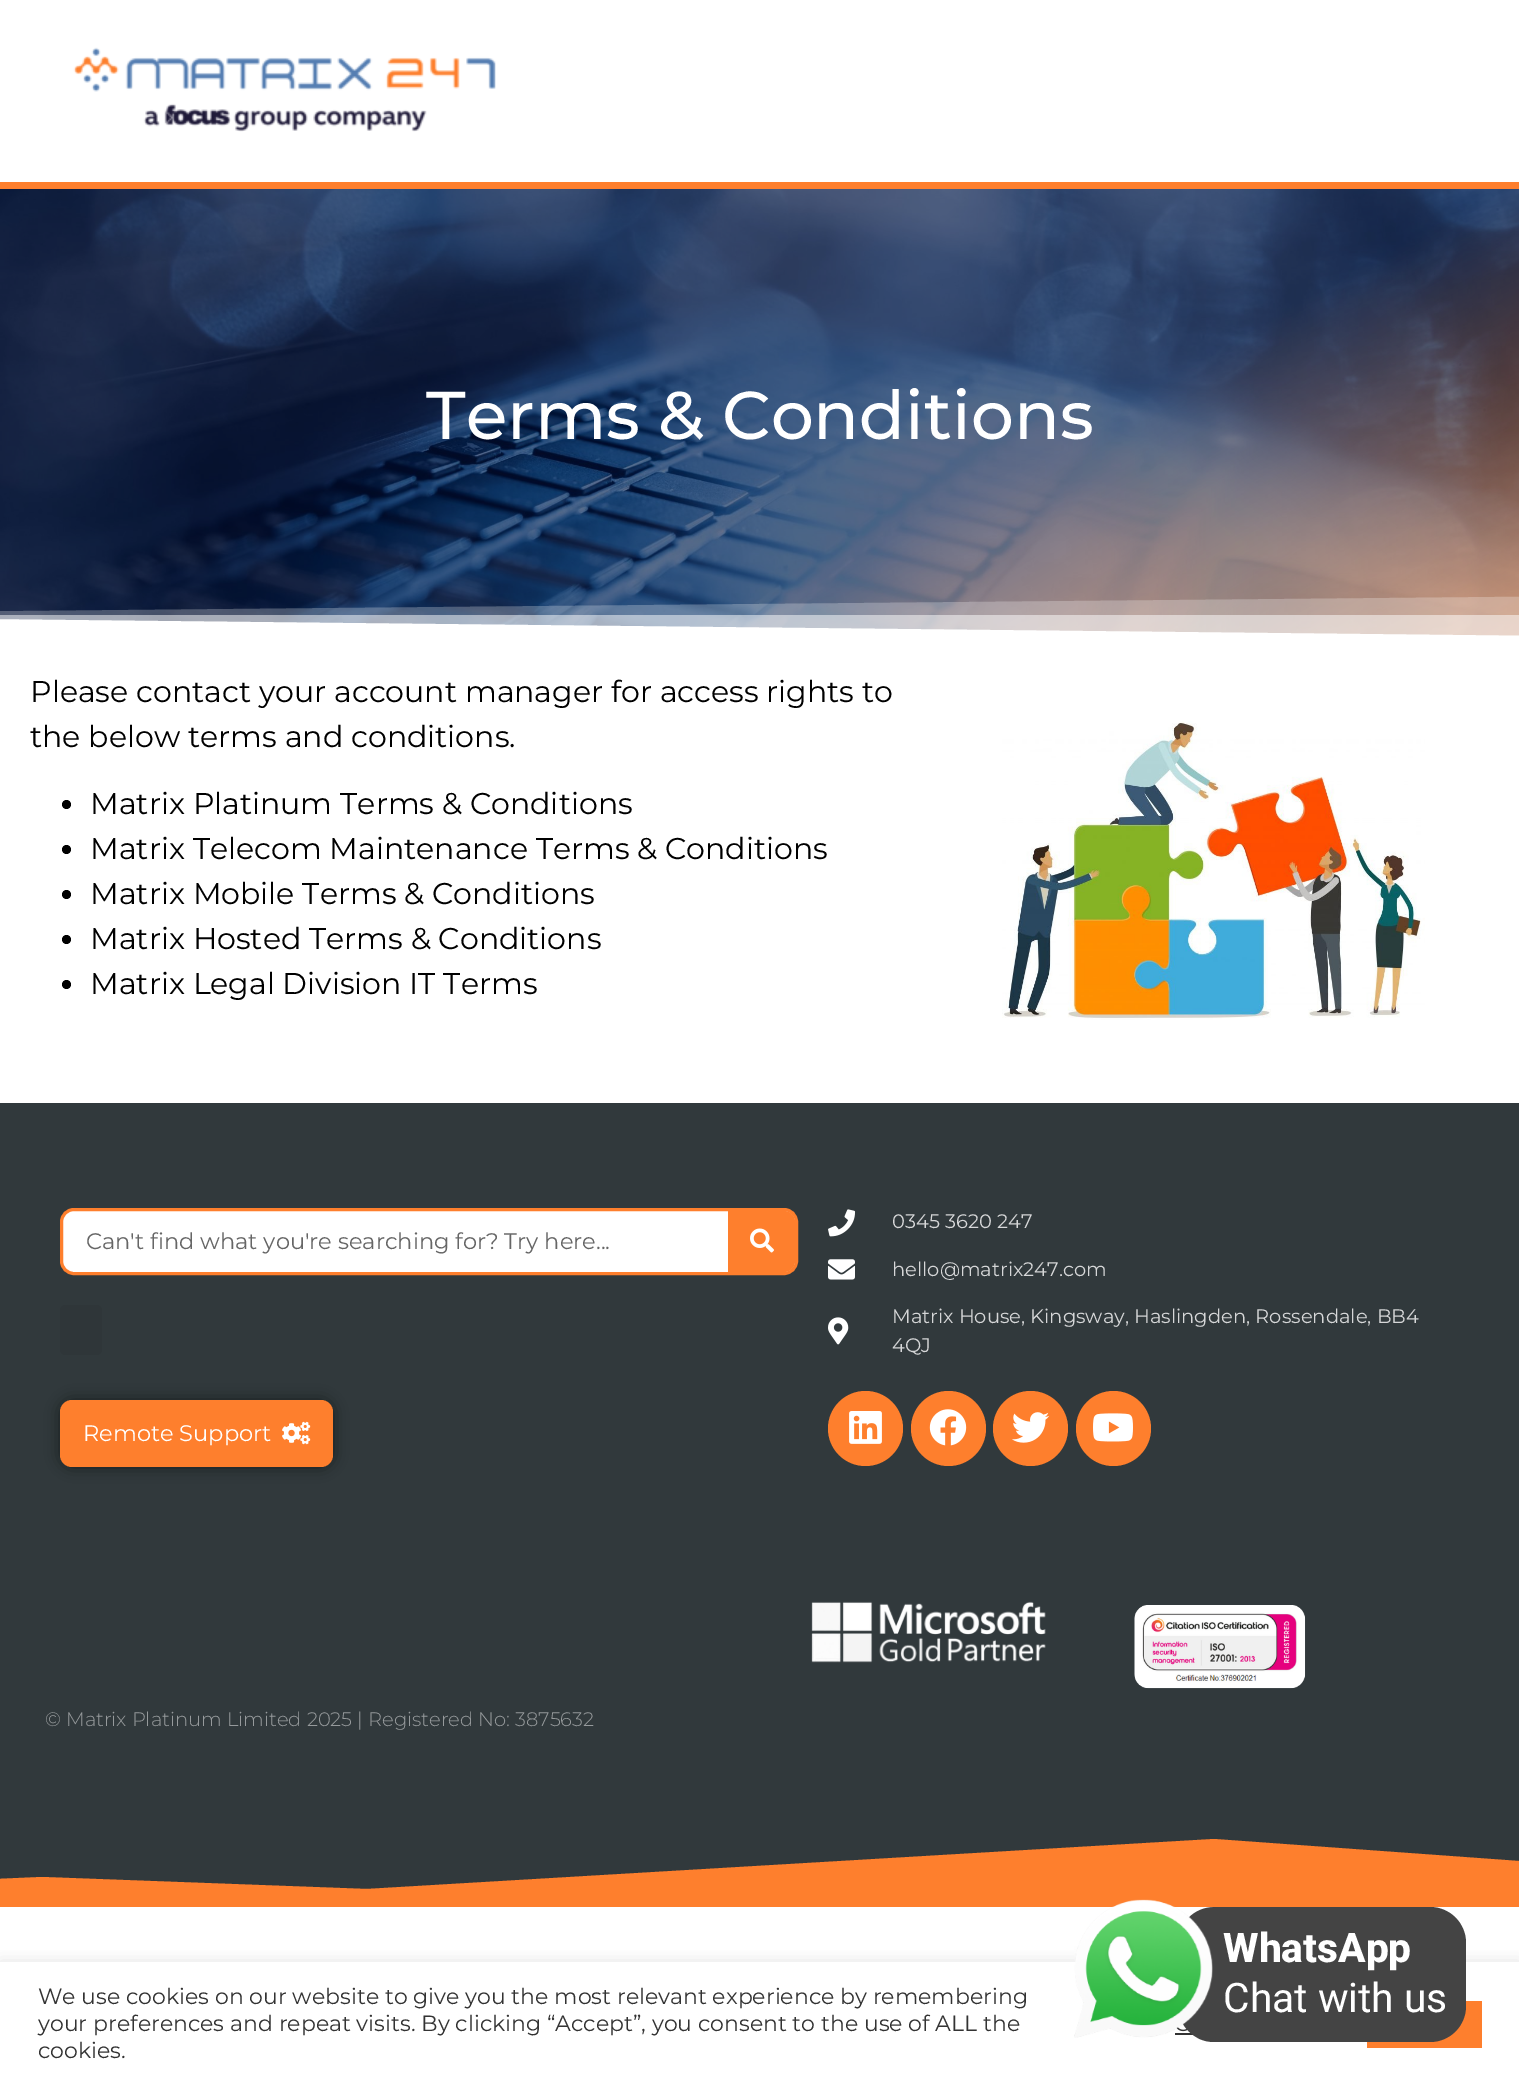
%!PS-Adobe-3.0
%%BoundingBox: 0 0 1519 2084
%%LanguageLevel: 3
%%Pages: 1
%%EndComments
%%BeginProlog
/setink { 3 { 255 div 3 1 roll } repeat setrgbcolor } def
/usefont { [ exch dup neg 0 0 3 -1 roll 0 0 ] selectfont } def
/drawtext { setink usefont moveto show } def
/fillbox { setink rectfill } def
/setalpha { dup .setfillconstantalpha .setstrokeconstantalpha } def
/disc { newpath 0 360 arc closepath } def
/rrect { 5 dict begin { /r /h /w /y /x } { exch def } forall
  x r add y moveto x w add y 2 copy h add r arct x w add y h add x 1 index r arct
  x y h add x y r arct x y 2 copy exch w add exch r arct closepath end } def
/softshadow { 12 dict begin { /a /b /q /h /w /y /x } { exch def } forall gsave /was 0 def
  9 -2 -9 { dup b mul 4 div /e exch def 1 sub .425 mul 2.718 exch exp 1 add a .99 .min exch div /now exch def
    1 1 now sub 1 was sub div sub setalpha /was now def
    w h .min e 2 mul add 0 gt { x e sub y e sub w e 2 mul add h e 2 mul add
      q e add b .6 mul add w h .min 2 div e add .min 0 .max rrect fill } if } for grestore end } def
/drawimage { 5 dict begin { /h /w /y /x /name } { exch def } forall
  gsave x y translate w h scale
  w h 8 [w 0 0 h 0 0] name (r) file false 3 colorimage grestore end } def
%%EndProlog
%%BeginSetup
<< /PageSize [1519 2084] /PageUsesTransparency true >> setpagedevice
%%EndSetup
%%Page: 1 1
0 .pushpdf14devicefilter
0 2084 translate 1 -1 scale
4 setmiterlimit
0 0 1519 2084 255 255 255 fillbox
0 182 1519 7 254 127 45 fillbox
(assets/img1.rgb) 73 47 423 85 drawimage
(assets/img2.rgb) 0 189 1519 447 drawimage
(Terms & Conditions) 426 439 /Montserrat-Medium 67.5 255 255 255 drawtext
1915 640 moveto -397 640 lineto -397 615 lineto closepath fill
0.5 setalpha
0 615 1519 21 255 255 255 fillbox
0.25 setalpha
-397 640 moveto 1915 640 lineto 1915 593 lineto -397 615 lineto closepath fill
1 setalpha
(Please contact your account manager for access rights to) 30 702 /Montserrat-Regular 30 0 0 0 drawtext
(the below terms and conditions.) 30 747 /Montserrat-Regular 30 0 0 0 drawtext
66.5 804.5 4.5 disc fill
(Matrix Platinum Terms & Conditions) 90 814 /Montserrat-Regular 30 0 0 0 drawtext
66.5 849.5 4.5 disc fill
(Matrix Telecom Maintenance Terms & Conditions) 90 859 /Montserrat-Regular 30 0 0 0 drawtext
66.5 894.5 4.5 disc fill
(Matrix Mobile Terms & Conditions) 90 904 /Montserrat-Regular 30 0 0 0 drawtext
66.5 939.5 4.5 disc fill
(Matrix Hosted Terms & Conditions) 90 949 /Montserrat-Regular 30 0 0 0 drawtext
66.5 984.5 4.5 disc fill
(Matrix Legal Division IT Terms) 90 994 /Montserrat-Regular 30 0 0 0 drawtext
(assets/img3.rgb) 1002 721 423 299 drawimage
0 1103 1519 786 49 57 60 fillbox
255 255 255 setink
61.5 1209.5 735 64 12.5 rrect gsave fill grestore
254 127 45 setink
3 setlinewidth
stroke
(Can't find what you're searching for? Try here...) 86 1249 /Montserrat-Regular 22.5 102 102 102 drawtext
254 127 45 setink
728 1211 moveto 784 1211 lineto 790 1211 795 1216 795 1222 curveto 795 1261 lineto 795 1267 790 1272 784 1272 curveto 728 1272 lineto closepath fill
(assets/img4.rgb) 750 1228 24 25 drawimage
47 54 57 setink
60 1305 42 50 5 rrect fill
0 0 0 setink
60 1400 273 67 12 7.5 0.5 softshadow
254 127 45 setink
60 1400 273 67 12 rrect fill
(Remote Support) 83 1441 /Montserrat-Regular 22.5 255 255 255 drawtext
(assets/img5.rgb) 282 1421 29 24 drawimage
(assets/img6.rgb) 828 1209 28 28 drawimage
(0345 3620 247) 892 1228 /Montserrat-Regular 19.5 214 215 216 drawtext
(assets/img7.rgb) 828 1259 27 21 drawimage
(hello@matrix247.com) 892 1276 /Montserrat-Regular 19.5 214 215 216 drawtext
(assets/img8.rgb) 828 1317 21 28 drawimage
(Matrix House, Kingsway, Haslingden, Rossendale, BB4) 892 1323 /Montserrat-Regular 19.5 214 215 216 drawtext
(4QJ) 892 1352 /Montserrat-Regular 19.5 214 215 216 drawtext
254 127 45 setink
865.5 1428.5 37.5 disc fill
(assets/img9.rgb) 849 1411 33 33 drawimage
948.5 1428.5 37.5 disc fill
(assets/img10.rgb) 929 1409 38 37 drawimage
1030.5 1428.5 37.5 disc fill
(assets/img11.rgb) 1012 1412 38 31 drawimage
1113.5 1428.5 37.5 disc fill
(assets/img12.rgb) 1093 1413 40 29 drawimage
(assets/img13.rgb) 811 1601 235 62 drawimage
(assets/img14.rgb) 1134 1605 172 84 drawimage
(© Matrix Platinum Limited 2025 | Registered No: 3875632) 45 1726 /Montserrat-Light 19.5 150 154 156 drawtext
gsave
0 1836 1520 71 rectclip
254 127 45 setink
42 1877 moveto 367 1889 lineto 1214 1839 lineto 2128 1905 lineto 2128 1908 lineto -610 1908 lineto -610 1905 lineto fill
grestore
gsave
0 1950 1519 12 rectclip
172 171 171 setink
0 1961 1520 123 0 7.5 0.3 softshadow
grestore
1175 2033 18 2 51 51 51 fillbox
1367 2001 115 47 254 127 45 fillbox
68 68 68 setink
1178 1907 288 135 36 rrect fill
(assets/img15.rgb) 1074 1899 139 139 drawimage
(WhatsApp) 1223 1962 /Roboto-ExtraBold 40.75 255 255 255 drawtext
(Chat with us) 1223 2012 /Roboto-Regular 40.75 255 255 255 drawtext
(We use cookies on our website to give you the most relevant experience by remembering) 38 2004 /Montserrat-Regular 22 51 51 51 drawtext
(your preferences and repeat visits. By clicking “Accept”, you consent to the use of ALL the) 38 2031 /Montserrat-Regular 22 51 51 51 drawtext
(cookies.) 38 2058 /Montserrat-Regular 22 51 51 51 drawtext
.poppdf14devicefilter showpage
%%EOF
